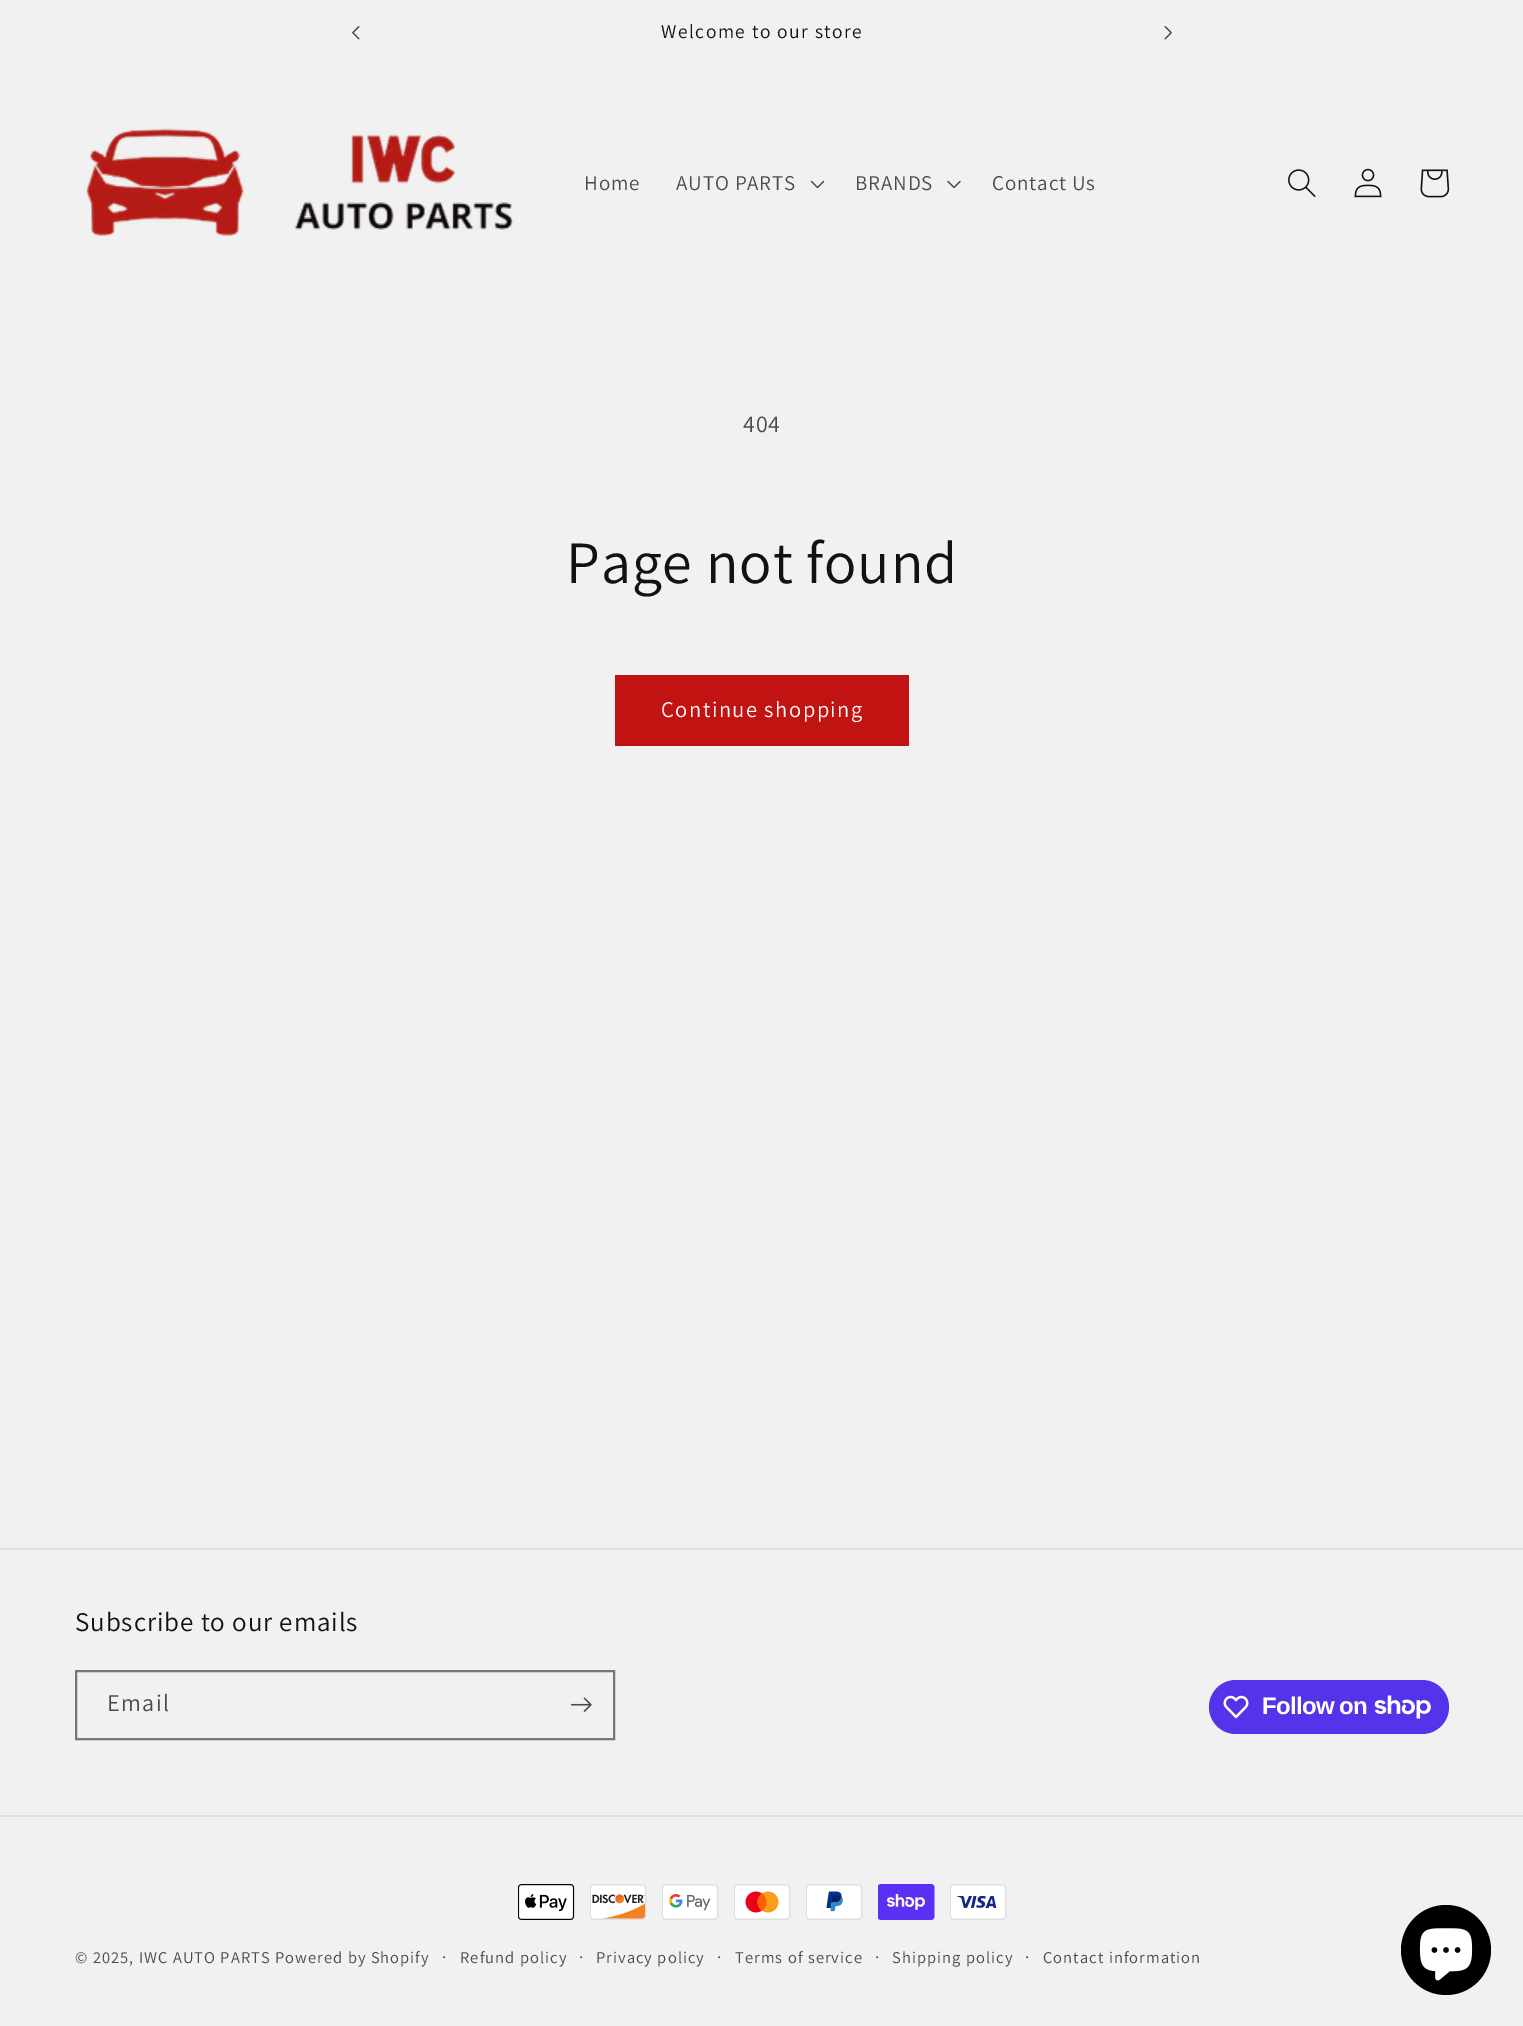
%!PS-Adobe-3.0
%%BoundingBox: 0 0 1523 2026
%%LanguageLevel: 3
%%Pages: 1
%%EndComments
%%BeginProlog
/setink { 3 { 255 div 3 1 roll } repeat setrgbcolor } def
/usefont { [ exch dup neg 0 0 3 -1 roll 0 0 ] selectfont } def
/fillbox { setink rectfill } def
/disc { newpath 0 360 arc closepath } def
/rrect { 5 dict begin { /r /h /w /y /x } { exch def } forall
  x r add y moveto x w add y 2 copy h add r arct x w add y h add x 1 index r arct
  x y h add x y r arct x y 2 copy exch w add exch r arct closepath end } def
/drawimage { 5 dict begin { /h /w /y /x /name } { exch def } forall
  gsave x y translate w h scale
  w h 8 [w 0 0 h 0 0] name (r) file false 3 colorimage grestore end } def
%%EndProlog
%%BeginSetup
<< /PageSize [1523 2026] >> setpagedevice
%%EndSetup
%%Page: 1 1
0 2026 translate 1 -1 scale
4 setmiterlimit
0 0 1523 2026 241 241 241 fillbox
(assets/img1.rgb) 352 26 8 14 drawimage
/Assistant-Regular 19.5 usefont
18 18 18 setink
661 38 moveto 1.5 0 (Welcome to our store) ashow
(assets/img2.rgb) 1164 26 8 14 drawimage
(assets/img3.rgb) 86 128 428 108 drawimage
/Assistant-Regular 21 usefont
74 74 74 setink
584 190 moveto 0.9 0 (Home) ashow
676 190 moveto 0.9 0 (AUTO PARTS) ashow
(assets/img4.rgb) 810 180 15 9 drawimage
855 190 moveto 0.9 0 (BRANDS) ashow
(assets/img5.rgb) 947 180 14 9 drawimage
992 190 moveto 0.9 0 (Contact Us) ashow
(assets/img6.rgb) 1288 169 28 28 drawimage
(assets/img7.rgb) 1354 168 28 30 drawimage
(assets/img8.rgb) 1420 169 30 29 drawimage
/Assistant-Regular 24 usefont
743 432 moveto 0.9 0 (404) ashow
/Assistant-Regular 60 usefont
18 18 18 setink
566 583 moveto 0.9 0 (Page not found) ashow
615 675 294 71 194 19 19 fillbox
/Assistant-Regular 22.5 usefont
255 255 255 setink
661 717 moveto 1.5 0 (Continue shopping) ashow
0 1548 1523 2 223 223 223 fillbox
/Assistant-Regular 27 usefont
18 18 18 setink
75 1631 moveto 0.9 0 (Subscribe to our emails) ashow
118 118 118 setink
2 setlinewidth
76 1671 538 68 rectstroke
/Assistant-Regular 24 usefont
74 74 74 setink
107 1711 moveto 1.5 0 (Email) ashow
(assets/img9.rgb) 570 1697 22 15 drawimage
84 51 235 setink
1209 1680 240 54 27 rrect fill
(assets/img10.rgb) 1223 1695 26 24 drawimage
/LiberationSans-Bold 24 usefont
255 255 255 setink
1262 1714 moveto -0.75 0 (Follow on) ashow
(assets/img11.rgb) 1374 1695 57 24 drawimage
0 1815 1523 2 223 223 223 fillbox
(assets/img12.rgb) 518 1884 57 36 drawimage
(assets/img13.rgb) 590 1884 57 36 drawimage
(assets/img14.rgb) 662 1884 57 36 drawimage
(assets/img15.rgb) 734 1884 57 36 drawimage
(assets/img16.rgb) 806 1884 57 36 drawimage
(assets/img17.rgb) 878 1884 57 36 drawimage
(assets/img18.rgb) 950 1884 57 36 drawimage
/Assistant-Regular 16.5 usefont
74 74 74 setink
75 1963 moveto 1.05 0 (© 2025, IWC AUTO PARTS) ashow
275 1963 moveto 1.05 0 (Powered by Shopify) ashow
/Assistant-Regular 18 usefont
442 1963 moveto 1.05 0 (·) ashow
/Assistant-Regular 16.5 usefont
460 1963 moveto 1.05 0 (Refund policy) ashow
/Assistant-Regular 18 usefont
579 1963 moveto 1.05 0 (·) ashow
/Assistant-Regular 16.5 usefont
596 1963 moveto 1.05 0 (Privacy policy) ashow
/Assistant-Regular 18 usefont
717 1963 moveto 1.05 0 (·) ashow
/Assistant-Regular 16.5 usefont
735 1963 moveto 1.05 0 (Terms of service) ashow
/Assistant-Regular 18 usefont
875 1963 moveto 1.05 0 (·) ashow
/Assistant-Regular 16.5 usefont
892 1963 moveto 1.05 0 (Shipping policy) ashow
/Assistant-Regular 18 usefont
1025 1963 moveto 1.05 0 (·) ashow
/Assistant-Regular 16.5 usefont
1043 1963 moveto 1.05 0 (Contact information) ashow
0 0 0 setink
1446 1950 45 disc fill
(assets/img19.rgb) 1419 1928 54 53 drawimage
showpage
%%EOF
